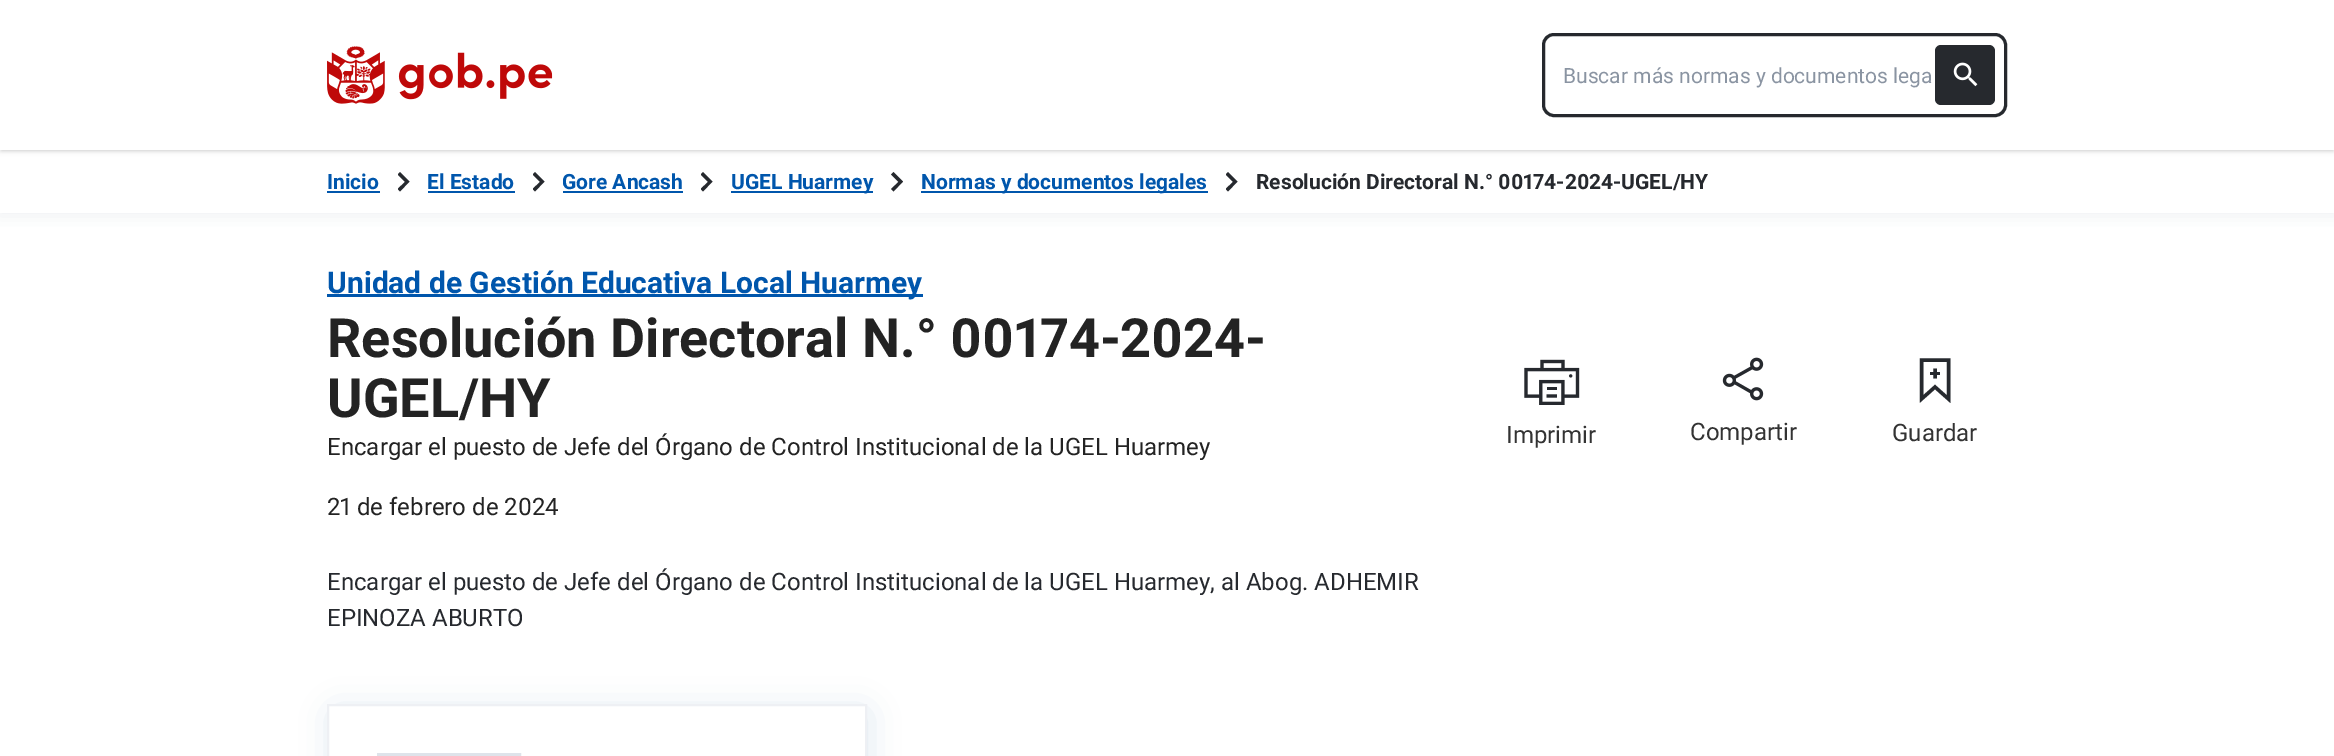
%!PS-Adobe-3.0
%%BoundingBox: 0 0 2334 756
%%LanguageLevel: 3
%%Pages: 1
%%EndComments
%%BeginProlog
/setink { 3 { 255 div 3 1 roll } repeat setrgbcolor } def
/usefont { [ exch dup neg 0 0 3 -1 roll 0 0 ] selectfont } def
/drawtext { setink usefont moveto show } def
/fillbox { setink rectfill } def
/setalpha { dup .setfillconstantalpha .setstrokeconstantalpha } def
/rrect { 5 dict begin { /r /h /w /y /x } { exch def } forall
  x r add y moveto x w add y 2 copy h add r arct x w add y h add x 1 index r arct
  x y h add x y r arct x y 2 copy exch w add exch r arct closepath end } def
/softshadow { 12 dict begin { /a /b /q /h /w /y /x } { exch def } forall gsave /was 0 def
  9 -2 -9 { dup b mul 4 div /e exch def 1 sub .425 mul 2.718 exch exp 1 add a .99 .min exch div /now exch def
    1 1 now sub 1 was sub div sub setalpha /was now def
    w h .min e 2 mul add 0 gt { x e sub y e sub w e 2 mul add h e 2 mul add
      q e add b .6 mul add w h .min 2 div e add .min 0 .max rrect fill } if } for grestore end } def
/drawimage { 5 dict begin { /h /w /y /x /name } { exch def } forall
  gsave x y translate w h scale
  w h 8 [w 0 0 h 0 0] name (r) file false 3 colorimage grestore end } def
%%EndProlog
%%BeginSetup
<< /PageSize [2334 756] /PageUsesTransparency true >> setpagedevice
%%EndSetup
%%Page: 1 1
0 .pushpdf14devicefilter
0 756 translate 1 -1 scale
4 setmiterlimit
0 0 2334 756 255 255 255 fillbox
0 0 0 setink
2 3 2331 147 0 1.5 0.1 softshadow
0 2 2334 150 0 2 0.1 softshadow
gsave
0 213 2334 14 rectclip
190 199 211 setink
-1 150 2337 66 0 8 0.25 softshadow
grestore
0 0 2334 150 255 255 255 fillbox
(assets/img1.rgb) 327 46 226 58 drawimage
38 41 46 setink
3 setlinewidth
1543.5 34.5 462 81 10.5 rrect stroke
(Buscar más normas y documentos lega) 1563 83 /Roboto-Regular 21 138 148 162 drawtext
38 41 46 setink
1935 45 60 60 6 rrect fill
(assets/img2.rgb) 1953 62 25 25 drawimage
(Inicio) 327 189 /Roboto-Bold 21 0 86 172 drawtext
327 191 53 2 0 86 172 fillbox
gsave
398 170 12 24 rectclip
38 41 46 setink
397.5 189 moveto 405 182 lineto 397.5 174.5 lineto 400 172 lineto 409.5 181.5 lineto 400 191.5 lineto closepath fill
grestore
(El Estado) 427 189 /Roboto-Bold 21 0 86 172 drawtext
428 191 87 2 0 86 172 fillbox
gsave
533 170 12 24 rectclip
38 41 46 setink
532.5 189 moveto 540 182 lineto 532.5 174.5 lineto 535 172 lineto 544.5 181.5 lineto 535 191.5 lineto closepath fill
grestore
(Gore Ancash) 562 189 /Roboto-Bold 21 0 86 172 drawtext
563 191 120 2 0 86 172 fillbox
gsave
701 170 12 24 rectclip
38 41 46 setink
700.5 189 moveto 708 182 lineto 700.5 174.5 lineto 703 172 lineto 712.5 181.5 lineto 703 191.5 lineto closepath fill
grestore
731 191 142 2 0 86 172 fillbox
(UGEL Huarmey) 731 189 /Roboto-Bold 21 0 86 172 drawtext
38 41 46 setink
891 189 moveto 898.5 182 lineto 891 174.5 lineto 893.5 172 lineto 903 181.5 lineto 893.5 191.5 lineto closepath fill
921 191 287 2 0 86 172 fillbox
(Normas y documentos legales) 921 189 /Roboto-Bold 21 0 86 172 drawtext
gsave
1226 170 12 24 rectclip
38 41 46 setink
1225.5 189 moveto 1233 182 lineto 1225.5 174.5 lineto 1228 172 lineto 1237.5 181.5 lineto 1228 191.5 lineto closepath fill
grestore
(Resolución Directoral N.° 00174-2024-UGEL/HY) 1256 189 /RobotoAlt-Bold 21 38 41 46 drawtext
327 294 596 3 0 86 172 fillbox
(Unidad de Gestión Educativa Local Huarmey) 327 293 /Roboto-Bold 30 0 86 172 drawtext
(Resolución Directoral N.° 00174-2024-) 327 357 /RobotoAlt-Bold 54 35 35 35 drawtext
(UGEL/HY) 327 417 /Roboto-Bold 54 35 35 35 drawtext
(Encargar el puesto de Jefe del Órgano de Control Institucional de la UGEL Huarmey) 327 455 /Roboto-Regular 24 35 35 35 drawtext
(21 de febrero de 2024) 327 515 /RobotoAlt-Regular 24 35 35 35 drawtext
(Encargar el puesto de Jefe del Órgano de Control Institucional de la UGEL Huarmey, al Abog. ADHEMIR) 327 590 /Roboto-Regular 24 38 41 46 drawtext
(EPINOZA ABURTO) 327 626 /Roboto-Regular 24 38 41 46 drawtext
gsave
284 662 moveto 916 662 lineto 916 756 lineto 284 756 lineto closepath 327 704 moveto 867 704 lineto 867 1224 lineto 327 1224 lineto closepath eoclip newpath
211 224 236 setink
336 714 528 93 0 17 1 softshadow
grestore
238 240 244 setink
2 setlinewidth
328 705 538 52 rectstroke
222 227 234 setink
5 setlinewidth
379.5 755.5 139 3 rectstroke
(assets/img3.rgb) 1524 359 56 46 drawimage
(Imprimir) 1506 443 /Roboto-Regular 24 51 51 51 drawtext
(assets/img4.rgb) 1722 357 42 44 drawimage
(Compartir) 1690 440 /Roboto-Regular 24 51 51 51 drawtext
38 41 46 setink
3.4 setlinewidth
1948.5 399 moveto 1935 387 lineto 1921.5 399 lineto 1921.5 360 lineto 1948.5 360 lineto closepath 1935 368.5 moveto 1935 378.5 lineto stroke
1930 372 10 3 38 41 46 fillbox
(Guardar) 1892 441 /Roboto-Regular 24 51 51 51 drawtext
.poppdf14devicefilter showpage
%%EOF
